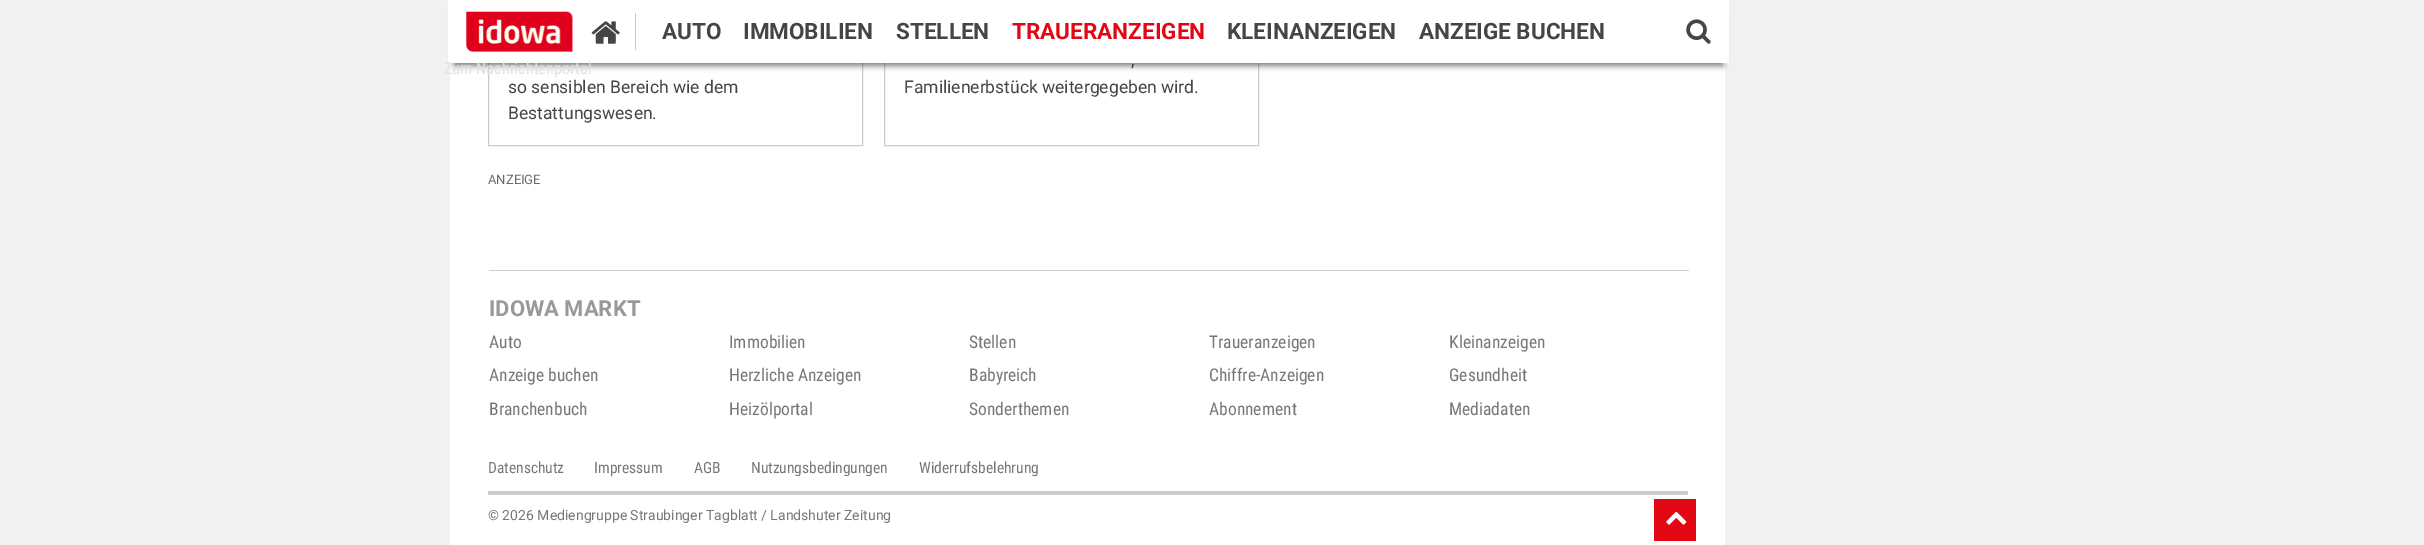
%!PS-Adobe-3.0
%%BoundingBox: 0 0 2424 545
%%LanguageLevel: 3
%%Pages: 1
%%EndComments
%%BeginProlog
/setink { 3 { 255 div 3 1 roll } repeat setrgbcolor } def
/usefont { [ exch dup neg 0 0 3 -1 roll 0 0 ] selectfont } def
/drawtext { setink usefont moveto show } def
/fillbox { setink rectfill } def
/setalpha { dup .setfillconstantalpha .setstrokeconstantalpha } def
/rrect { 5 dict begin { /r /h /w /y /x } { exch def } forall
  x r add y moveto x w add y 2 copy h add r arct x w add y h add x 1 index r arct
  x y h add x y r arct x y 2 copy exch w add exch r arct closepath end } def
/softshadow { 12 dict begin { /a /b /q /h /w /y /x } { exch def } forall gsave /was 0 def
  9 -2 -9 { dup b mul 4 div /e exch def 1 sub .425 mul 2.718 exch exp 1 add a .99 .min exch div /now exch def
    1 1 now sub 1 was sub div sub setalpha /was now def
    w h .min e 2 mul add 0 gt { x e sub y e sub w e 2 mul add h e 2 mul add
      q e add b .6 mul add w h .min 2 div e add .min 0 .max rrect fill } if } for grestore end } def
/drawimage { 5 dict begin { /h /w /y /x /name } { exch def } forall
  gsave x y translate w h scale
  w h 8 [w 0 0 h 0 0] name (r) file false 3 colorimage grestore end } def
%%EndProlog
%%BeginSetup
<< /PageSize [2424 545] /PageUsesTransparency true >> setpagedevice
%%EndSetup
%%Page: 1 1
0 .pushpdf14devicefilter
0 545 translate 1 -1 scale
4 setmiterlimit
0 0 2424 545 241 241 241 fillbox
450 63 1275 482 255 255 255 fillbox
204 204 204 setink
488.5 -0.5 374 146 rectstroke
884.5 -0.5 374 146 rectstroke
0 0 0 setink
454 16 1269 50 0 3 0.5 softshadow
448 0 1281 63 255 255 255 fillbox
635 13 1 37 204 204 204 fillbox
(assets/img1.rgb) 591 21 29 23 drawimage
(AUTO) 662 39 /Roboto-Bold 22.5 69 69 69 drawtext
(IMMOBILIEN) 743 39 /Roboto-Bold 22.5 69 69 69 drawtext
(STELLEN) 896 39 /Roboto-Bold 22.5 69 69 69 drawtext
(TRAUERANZEIGEN) 1012 39 /Roboto-Bold 22.5 227 6 19 drawtext
(KLEINANZEIGEN) 1227 39 /Roboto-Bold 22.5 69 69 69 drawtext
(ANZEIGE BUCHEN) 1419 39 /Roboto-Bold 22.5 69 69 69 drawtext
(assets/img2.rgb) 1686 19 25 25 drawimage
(assets/img3.rgb) 466 11 107 41 drawimage
(Zum Nachrichtenportal) 444 74 /RobotoCondensed-Regular 16.25 225 225 225 drawtext
(so sensiblen Bereich wie dem) 508 93 /Roboto-Regular 17.5 69 69 69 drawtext
(Bestattungswesen.) 508 119 /Roboto-Regular 17.5 69 69 69 drawtext
(,) 1131 66 /Roboto-Regular 17.5 69 69 69 drawtext
(Familienerbstück weitergegeben wird.) 904 93 /Roboto-Regular 17.5 69 69 69 drawtext
(ANZEIGE) 488 184 /Roboto-Regular 13 105 105 105 drawtext
489 270 1200 1 204 204 204 fillbox
(IDOWA MARKT) 489 316 /Roboto-Bold 22 153 153 153 drawtext
(Auto) 489 348 /RobotoCondensed-Regular 17.5 119 119 119 drawtext
(Immobilien) 729 348 /RobotoCondensed-Regular 17.5 119 119 119 drawtext
(Stellen) 969 348 /RobotoCondensed-Regular 17.5 119 119 119 drawtext
(Traueranzeigen) 1209 348 /RobotoCondensed-Regular 17.5 119 119 119 drawtext
(Kleinanzeigen) 1449 348 /RobotoCondensed-Regular 17.5 119 119 119 drawtext
(Anzeige buchen) 489 381 /RobotoCondensed-Regular 17.5 119 119 119 drawtext
(Herzliche Anzeigen) 729 381 /RobotoCondensed-Regular 17.5 119 119 119 drawtext
(Babyreich) 969 381 /RobotoCondensed-Regular 17.5 119 119 119 drawtext
(Chiffre-Anzeigen) 1209 381 /RobotoCondensed-Regular 17.5 119 119 119 drawtext
(Gesundheit) 1449 381 /RobotoCondensed-Regular 17.5 119 119 119 drawtext
(Branchenbuch) 489 415 /RobotoCondensed-Regular 17.5 119 119 119 drawtext
(Heizölportal) 729 415 /RobotoCondensed-Regular 17.5 119 119 119 drawtext
(Sonderthemen) 969 415 /RobotoCondensed-Regular 17.5 119 119 119 drawtext
(Abonnement) 1209 415 /RobotoCondensed-Regular 17.5 119 119 119 drawtext
(Mediadaten) 1449 415 /RobotoCondensed-Regular 17.5 119 119 119 drawtext
(Datenschutz) 488 473 /RobotoCondensed-Regular 15.5 119 119 119 drawtext
(Impressum) 594 473 /RobotoCondensed-Regular 15.5 119 119 119 drawtext
(AGB) 694 473 /RobotoCondensed-Regular 15.5 119 119 119 drawtext
gsave
488 459 581 17 rectclip
(Nutzungsbedingungen) 751 473 /RobotoCondensed-Regular 15.5 119 119 119 drawtext
grestore
(Widerrufsbelehrung) 919 473 /RobotoCondensed-Regular 15.5 119 119 119 drawtext
488 491 1200 4 204 204 204 fillbox
(© 2026 Mediengruppe Straubinger Tagblatt / Landshuter Zeitung) 488 520 /Roboto-Regular 14 119 119 119 drawtext
1654 499 42 42 227 6 19 fillbox
(assets/img4.rgb) 1666 511 21 14 drawimage
.poppdf14devicefilter showpage
%%EOF
